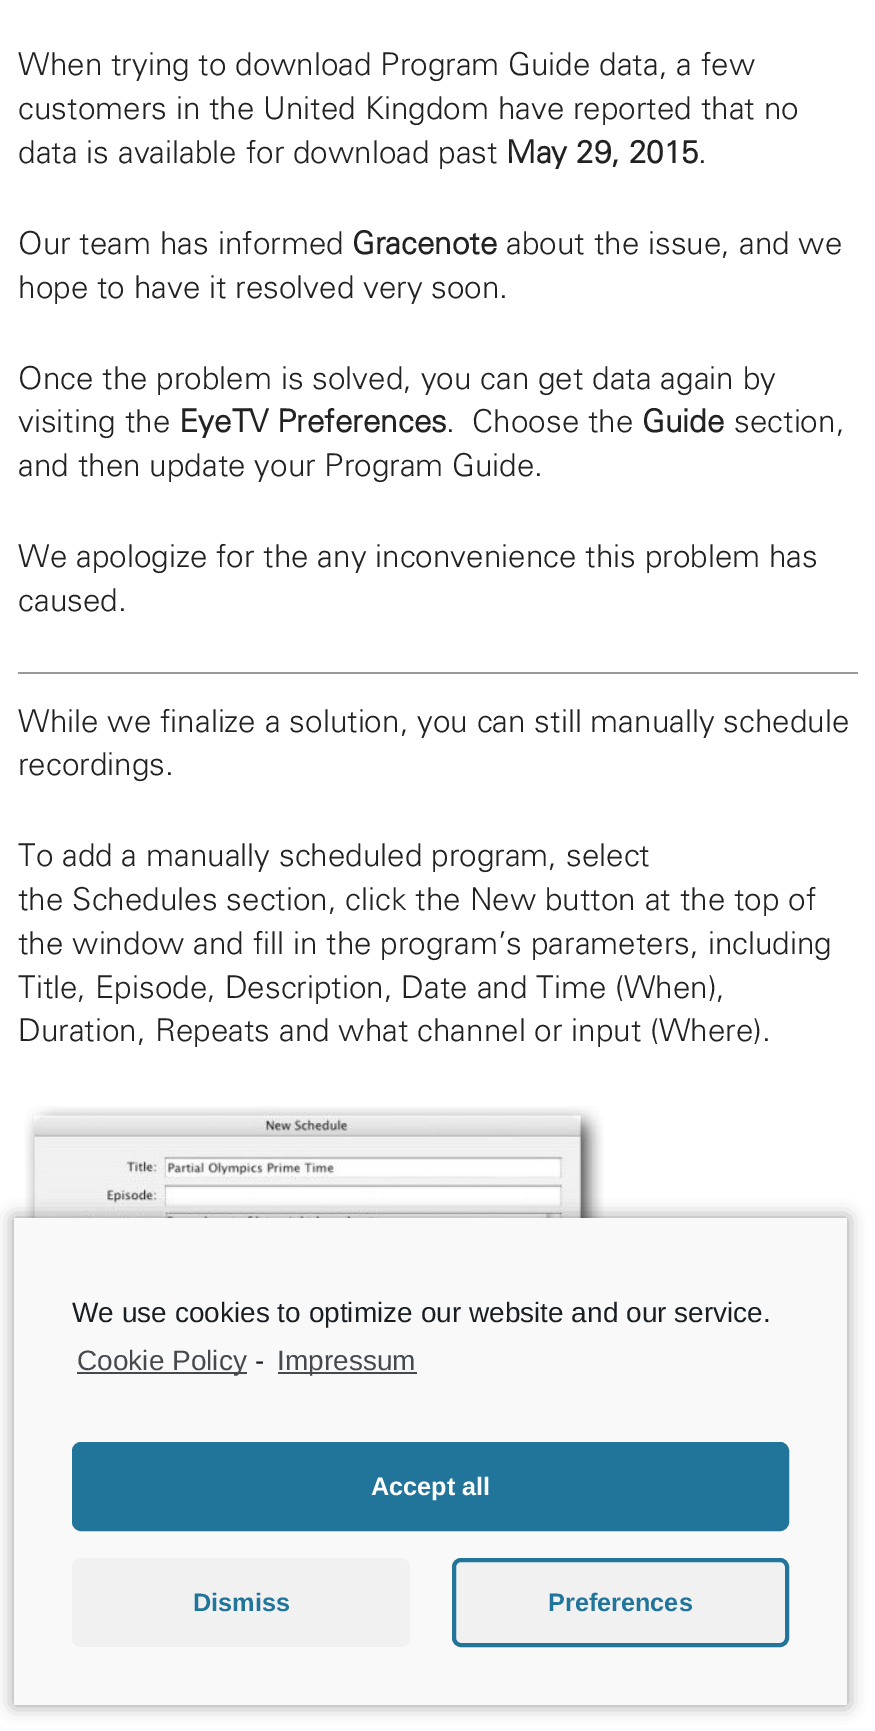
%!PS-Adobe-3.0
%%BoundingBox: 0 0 875 1731
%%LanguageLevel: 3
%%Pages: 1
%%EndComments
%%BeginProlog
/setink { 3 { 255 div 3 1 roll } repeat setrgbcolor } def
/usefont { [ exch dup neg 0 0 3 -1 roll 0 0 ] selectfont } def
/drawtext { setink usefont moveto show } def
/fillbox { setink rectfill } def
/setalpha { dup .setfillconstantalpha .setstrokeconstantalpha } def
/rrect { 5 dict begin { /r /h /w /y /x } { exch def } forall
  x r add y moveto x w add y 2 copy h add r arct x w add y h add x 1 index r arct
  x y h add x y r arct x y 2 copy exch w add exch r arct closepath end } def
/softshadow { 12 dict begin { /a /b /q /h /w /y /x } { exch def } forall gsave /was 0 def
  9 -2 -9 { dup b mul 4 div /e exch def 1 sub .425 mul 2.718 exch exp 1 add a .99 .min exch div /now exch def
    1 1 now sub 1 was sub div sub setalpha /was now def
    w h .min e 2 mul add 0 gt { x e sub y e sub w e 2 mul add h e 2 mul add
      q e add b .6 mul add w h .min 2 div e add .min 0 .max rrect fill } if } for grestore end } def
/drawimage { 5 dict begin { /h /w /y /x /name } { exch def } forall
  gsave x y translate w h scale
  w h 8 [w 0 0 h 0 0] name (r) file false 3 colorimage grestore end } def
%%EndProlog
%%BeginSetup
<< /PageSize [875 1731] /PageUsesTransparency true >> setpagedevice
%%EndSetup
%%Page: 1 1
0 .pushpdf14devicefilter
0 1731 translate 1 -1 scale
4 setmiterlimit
0 0 875 1731 255 255 255 fillbox
(When trying to download Program Guide data, a few) 18 75 /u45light-Regular 31.5 34 34 34 drawtext
(customers in the United Kingdom have reported that no) 18 119 /u45light-Regular 31.5 34 34 34 drawtext
(data is available for download past) 18 163 /u45light-Regular 31.5 34 34 34 drawtext
(May 29, 2015) 506 163 /u45light-Bold 31.5 34 34 34 drawtext
(.) 698 163 /u45light-Regular 31.5 34 34 34 drawtext
(Our team has informed) 18 254 /u45light-Regular 31.5 34 34 34 drawtext
(Gracenote) 352 254 /u45light-Bold 31.5 34 34 34 drawtext
(about the issue, and we) 506 254 /u45light-Regular 31.5 34 34 34 drawtext
(hope to have it resolved very soon.) 18 298 /u45light-Regular 31.5 34 34 34 drawtext
(Once the problem is solved, you can get data again by) 18 389 /u45light-Regular 31.5 34 34 34 drawtext
(visiting the) 18 432 /u45light-Regular 31.5 34 34 34 drawtext
(EyeTV Preferences) 179 432 /u45light-Bold 31.5 34 34 34 drawtext
(.  Choose the) 446 432 /u45light-Regular 31.5 34 34 34 drawtext
(Guide) 642 432 /u45light-Bold 31.5 34 34 34 drawtext
(section,) 734 432 /u45light-Regular 31.5 34 34 34 drawtext
(and then update your Program Guide.) 18 476 /u45light-Regular 31.5 34 34 34 drawtext
(We apologize for the any inconvenience this problem has) 18 567 /u45light-Regular 31.5 34 34 34 drawtext
(caused.) 18 611 /u45light-Regular 31.5 34 34 34 drawtext
18 672 840 2 153 153 153 fillbox
(While we finalize a solution, you can still manually schedule) 18 732 /u45light-Regular 31.5 34 34 34 drawtext
(recordings.) 18 775 /u45light-Regular 31.5 34 34 34 drawtext
(To add a manually scheduled program, select) 18 866 /u45light-Regular 31.5 34 34 34 drawtext
(the Schedules section, click the New button at the top of) 18 910 /u45light-Regular 31.5 34 34 34 drawtext
(the window and fill in the program’s parameters, including) 18 954 /u45light-Regular 31.5 34 34 34 drawtext
(Title, Episode, Description, Date and Time \(When\),) 18 998 /u45light-Regular 31.5 34 34 34 drawtext
(Duration, Repeats and what channel or input \(Where\).) 18 1041 /u45light-Regular 31.5 34 34 34 drawtext
(assets/img1.rgb) 24 1106 580 112 drawimage
0 0 0 setink
14 1218 833 487 0 9 0.4 softshadow
14 1218 833 487 249 249 249 fillbox
(We use cookies to optimize our website and our service.) 72 1322 /LiberationSans-Regular 28 25 30 35 drawtext
77 1372 170 2 70 74 78 fillbox
(Cookie Policy) 77 1370 /LiberationSans-Regular 28 70 74 78 drawtext
(-) 255 1370 /LiberationSans-Regular 28 25 30 35 drawtext
278 1372 139 2 70 74 78 fillbox
(Impressum) 277 1370 /LiberationSans-Regular 28 70 74 78 drawtext
33 117 155 setink
74 1444 713 85 7 rrect gsave fill grestore
4 setlinewidth
stroke
(Accept all) 371 1495 /LiberationSans-Bold 25.25 255 255 255 drawtext
241 241 241 setink
72 1558 338 89 9 rrect fill
(Dismiss) 193 1611 /LiberationSans-Bold 25.25 33 117 155 drawtext
241 241 241 setink
454 1560 333 85 7 rrect gsave fill grestore
33 117 155 setink
stroke
(Preferences) 548 1611 /LiberationSans-Bold 25.25 33 117 155 drawtext
.poppdf14devicefilter showpage
%%EOF
